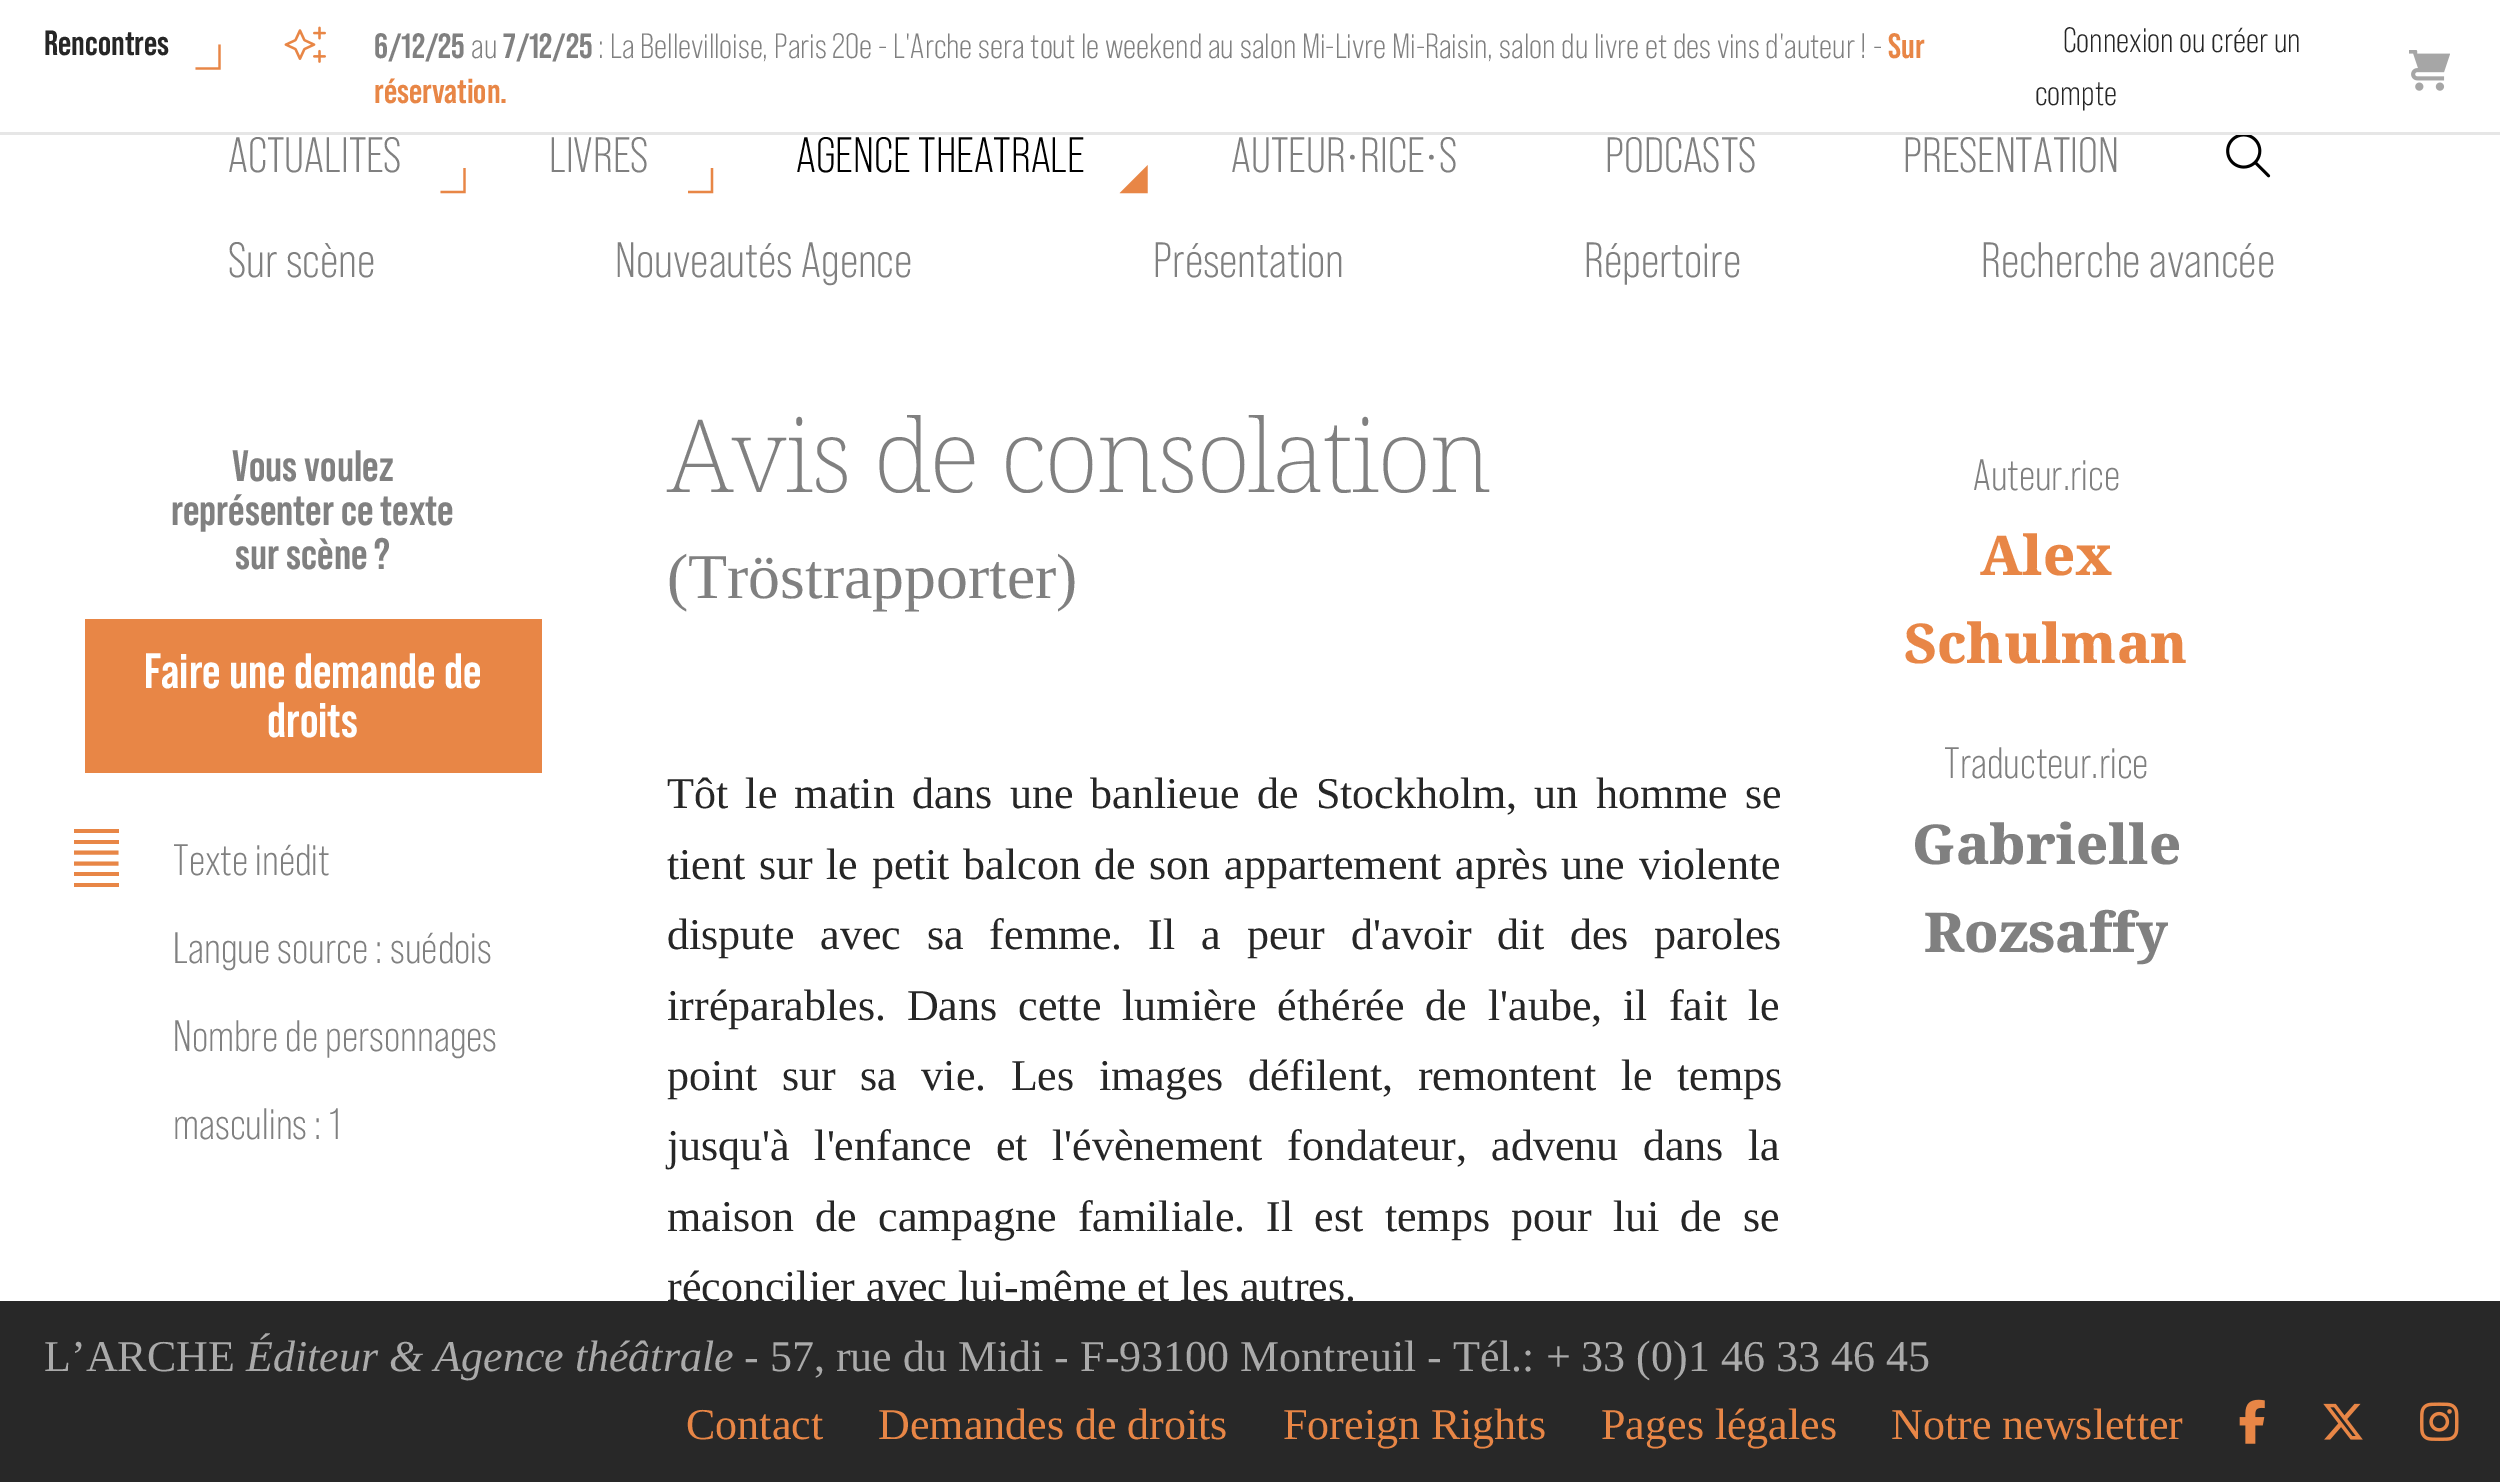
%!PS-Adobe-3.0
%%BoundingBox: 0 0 2500 1482
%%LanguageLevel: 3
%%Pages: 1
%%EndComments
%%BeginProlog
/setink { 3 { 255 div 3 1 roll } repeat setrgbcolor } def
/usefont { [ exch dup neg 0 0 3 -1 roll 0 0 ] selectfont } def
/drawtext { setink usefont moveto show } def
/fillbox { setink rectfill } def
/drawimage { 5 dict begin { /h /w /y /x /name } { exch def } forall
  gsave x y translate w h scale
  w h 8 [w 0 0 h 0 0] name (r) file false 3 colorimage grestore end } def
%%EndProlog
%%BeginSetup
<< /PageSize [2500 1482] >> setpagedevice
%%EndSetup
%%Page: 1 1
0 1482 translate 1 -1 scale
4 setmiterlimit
0 0 2500 1482 255 255 255 fillbox
(ACTUALITÉS) 228 172 /BebasNeue-Regular 49.5 128 128 128 drawtext
(AGENCE THÉÂTRALE) 796 172 /BebasNeue-Regular 49.5 0 0 0 drawtext
(PRÉSENTATION) 1903 172 /BebasNeue-Regular 49.5 128 128 128 drawtext
375 128 1581 4 255 255 255 fillbox
0 132 2500 3 230 230 230 fillbox
232 134 70 setink
2.2 setlinewidth
219.5 44.5 moveto 219.5 68.5 lineto 195.5 68.5 lineto stroke
(Rencontres) 44 55 /BebasNeue-Bold 35.2 38 38 38 drawtext
(assets/img1.rgb) 284 26 42 37 drawimage
(6/12/25) 374 58 /BebasNeue-Bold 35.2 128 128 128 drawtext
(au) 471 58 /BebasNeue-Regular 35.2 128 128 128 drawtext
(7/12/25) 503 58 /BebasNeue-Bold 35.2 128 128 128 drawtext
(: La Bellevilloise, Paris 20e - L'Arche sera tout le weekend au salon Mi-Livre Mi-Raisin, salon du livre et des vins d'auteur !) 598 58 /BebasNeue-Regular 35.2 128 128 128 drawtext
(-) 1873 58 /BebasNeue-Regular 35.2 128 128 128 drawtext
(Sur) 1888 58 /BebasNeue-Bold 35.2 232 134 70 drawtext
(réservation.) 374 103 /BebasNeue-Bold 35.2 232 134 70 drawtext
(Connexion ou créer un) 2063 52 /BebasNeue-Regular 35.2 38 38 38 drawtext
(compte) 2035 105 /BebasNeue-Regular 35.2 38 38 38 drawtext
(assets/img2.rgb) 2409 50 41 41 drawimage
232 134 70 setink
464.5 168 moveto 464.5 192 lineto 440.5 192 lineto stroke
1146.5 192 moveto 1122.5 192 lineto 1146.5 168 lineto closepath gsave fill grestore
stroke
(Sur scène) 228 277 /BebasNeue-Regular 49.5 128 128 128 drawtext
(Nouveautés Agence) 615 277 /BebasNeue-Regular 49.5 128 128 128 drawtext
(Présentation) 1153 277 /BebasNeue-Regular 49.5 128 128 128 drawtext
(Répertoire) 1584 277 /BebasNeue-Regular 49.5 128 128 128 drawtext
(Recherche avancée) 1981 277 /BebasNeue-Regular 49.5 128 128 128 drawtext
232 134 70 setink
712 168 moveto 712 192 lineto 688 192 lineto stroke
(LIVRES) 549 172 /BebasNeue-Regular 49.5 128 128 128 drawtext
(AUTEUR•RICE•S) 1231 172 /BebasNeue-Regular 49.5 128 128 128 drawtext
(PODCASTS) 1605 172 /BebasNeue-Regular 49.5 128 128 128 drawtext
(assets/img3.rgb) 2226 135 45 43 drawimage
(Vous voulez) 232 481 /BebasNeue-Bold 44 128 128 128 drawtext
(représenter ce texte) 171 525 /BebasNeue-Bold 44 128 128 128 drawtext
(sur scène ?) 235 569 /BebasNeue-Bold 44 128 128 128 drawtext
85 619 457 154 232 134 70 fillbox
(Faire une demande de) 144 688 /BebasNeue-Bold 49.5 255 255 255 drawtext
(droits) 267 737 /BebasNeue-Bold 49.5 255 255 255 drawtext
74 883 45 4 232 134 70 fillbox
74 872 45 4 232 134 70 fillbox
4.1 setlinewidth
74 863.5 moveto 118.5 863.5 lineto 74 852.5 moveto 118.5 852.5 lineto stroke
74 840 45 4 232 134 70 fillbox
74 829 45 4 232 134 70 fillbox
(Texte inédit) 173 875 /BebasNeue-Regular 44 128 128 128 drawtext
(Langue source : suédois) 173 963 /BebasNeue-Regular 44 128 128 128 drawtext
(Nombre de personnages) 173 1051 /BebasNeue-Regular 44 128 128 128 drawtext
(masculins : 1) 173 1139 /BebasNeue-Regular 44 128 128 128 drawtext
/NotoSerif-ExtraLight 101.25 usefont
667 492 moveto -2.75 0 (Avis de consolation) ashow
(\(Tröstrapporter\)) 667 598 /LiberationSerif-Regular 63.75 128 128 128 drawtext
/LiberationSerif-Regular 44 usefont
38 38 38 setink
667 808 moveto 6.25 0 32 (Tôt le matin dans une banlieue de Stockholm, un homme se) widthshow
667 879 moveto 2.6 0 32 (tient sur le petit balcon de son appartement après une violente) widthshow
667 949 moveto 15 0 32 (dispute avec sa femme. Il a peur d'avoir dit des paroles) widthshow
667 1020 moveto 10 0 32 (irréparables. Dans cette lumière éthérée de l'aube, il fait le) widthshow
667 1090 moveto 13.5 0 32 (point sur sa vie. Les images défilent, remontent le temps) widthshow
667 1160 moveto 13.5 0 32 (jusqu'à l'enfance et l'évènement fondateur, advenu dans la) widthshow
667 1231 moveto 10.25 0 32 (maison de campagne familiale. Il est temps pour lui de se) widthshow
(réconcilier avec lui-même et les autres.) 667 1301 /LiberationSerif-Regular 44 38 38 38 drawtext
(Auteur.rice) 1973 490 /BebasNeue-Regular 44 128 128 128 drawtext
(Alex) 1980 575 /NotoSerif-ExtraBold 55 232 134 70 drawtext
(Schulman) 1904 663 /NotoSerif-ExtraBold 55 232 134 70 drawtext
(Traducteur.rice) 1944 778 /BebasNeue-Regular 44 128 128 128 drawtext
(Gabrielle) 1912 864 /NotoSerif-ExtraBold 55 128 128 128 drawtext
(Rozsaffy) 1924 952 /NotoSerif-ExtraBold 55 128 128 128 drawtext
0 1301 2500 181 40 40 40 fillbox
(L’ARCHE) 44 1371 /LiberationSerif-Regular 44 170 170 170 drawtext
(Éditeur & Agence théâtrale) 246 1371 /LiberationSerif-Italic 44 170 170 170 drawtext
(- 57, rue du Midi - F-93100 Montreuil - Tél.: + 33 \(0\)1 46 33 46 45) 744 1371 /LiberationSerif-Regular 44 170 170 170 drawtext
(Contact) 686 1439 /LiberationSerif-Regular 44 232 134 70 drawtext
(Demandes de droits) 878 1439 /LiberationSerif-Regular 44 232 134 70 drawtext
(Foreign Rights) 1283 1439 /LiberationSerif-Regular 44 232 134 70 drawtext
(Pages légales) 1601 1439 /LiberationSerif-Regular 44 232 134 70 drawtext
(Notre newsletter) 1891 1439 /LiberationSerif-Regular 44 232 134 70 drawtext
(assets/img4.rgb) 2239 1399 26 45 drawimage
(assets/img5.rgb) 2323 1403 40 37 drawimage
(assets/img6.rgb) 2420 1402 39 39 drawimage
showpage
%%EOF
